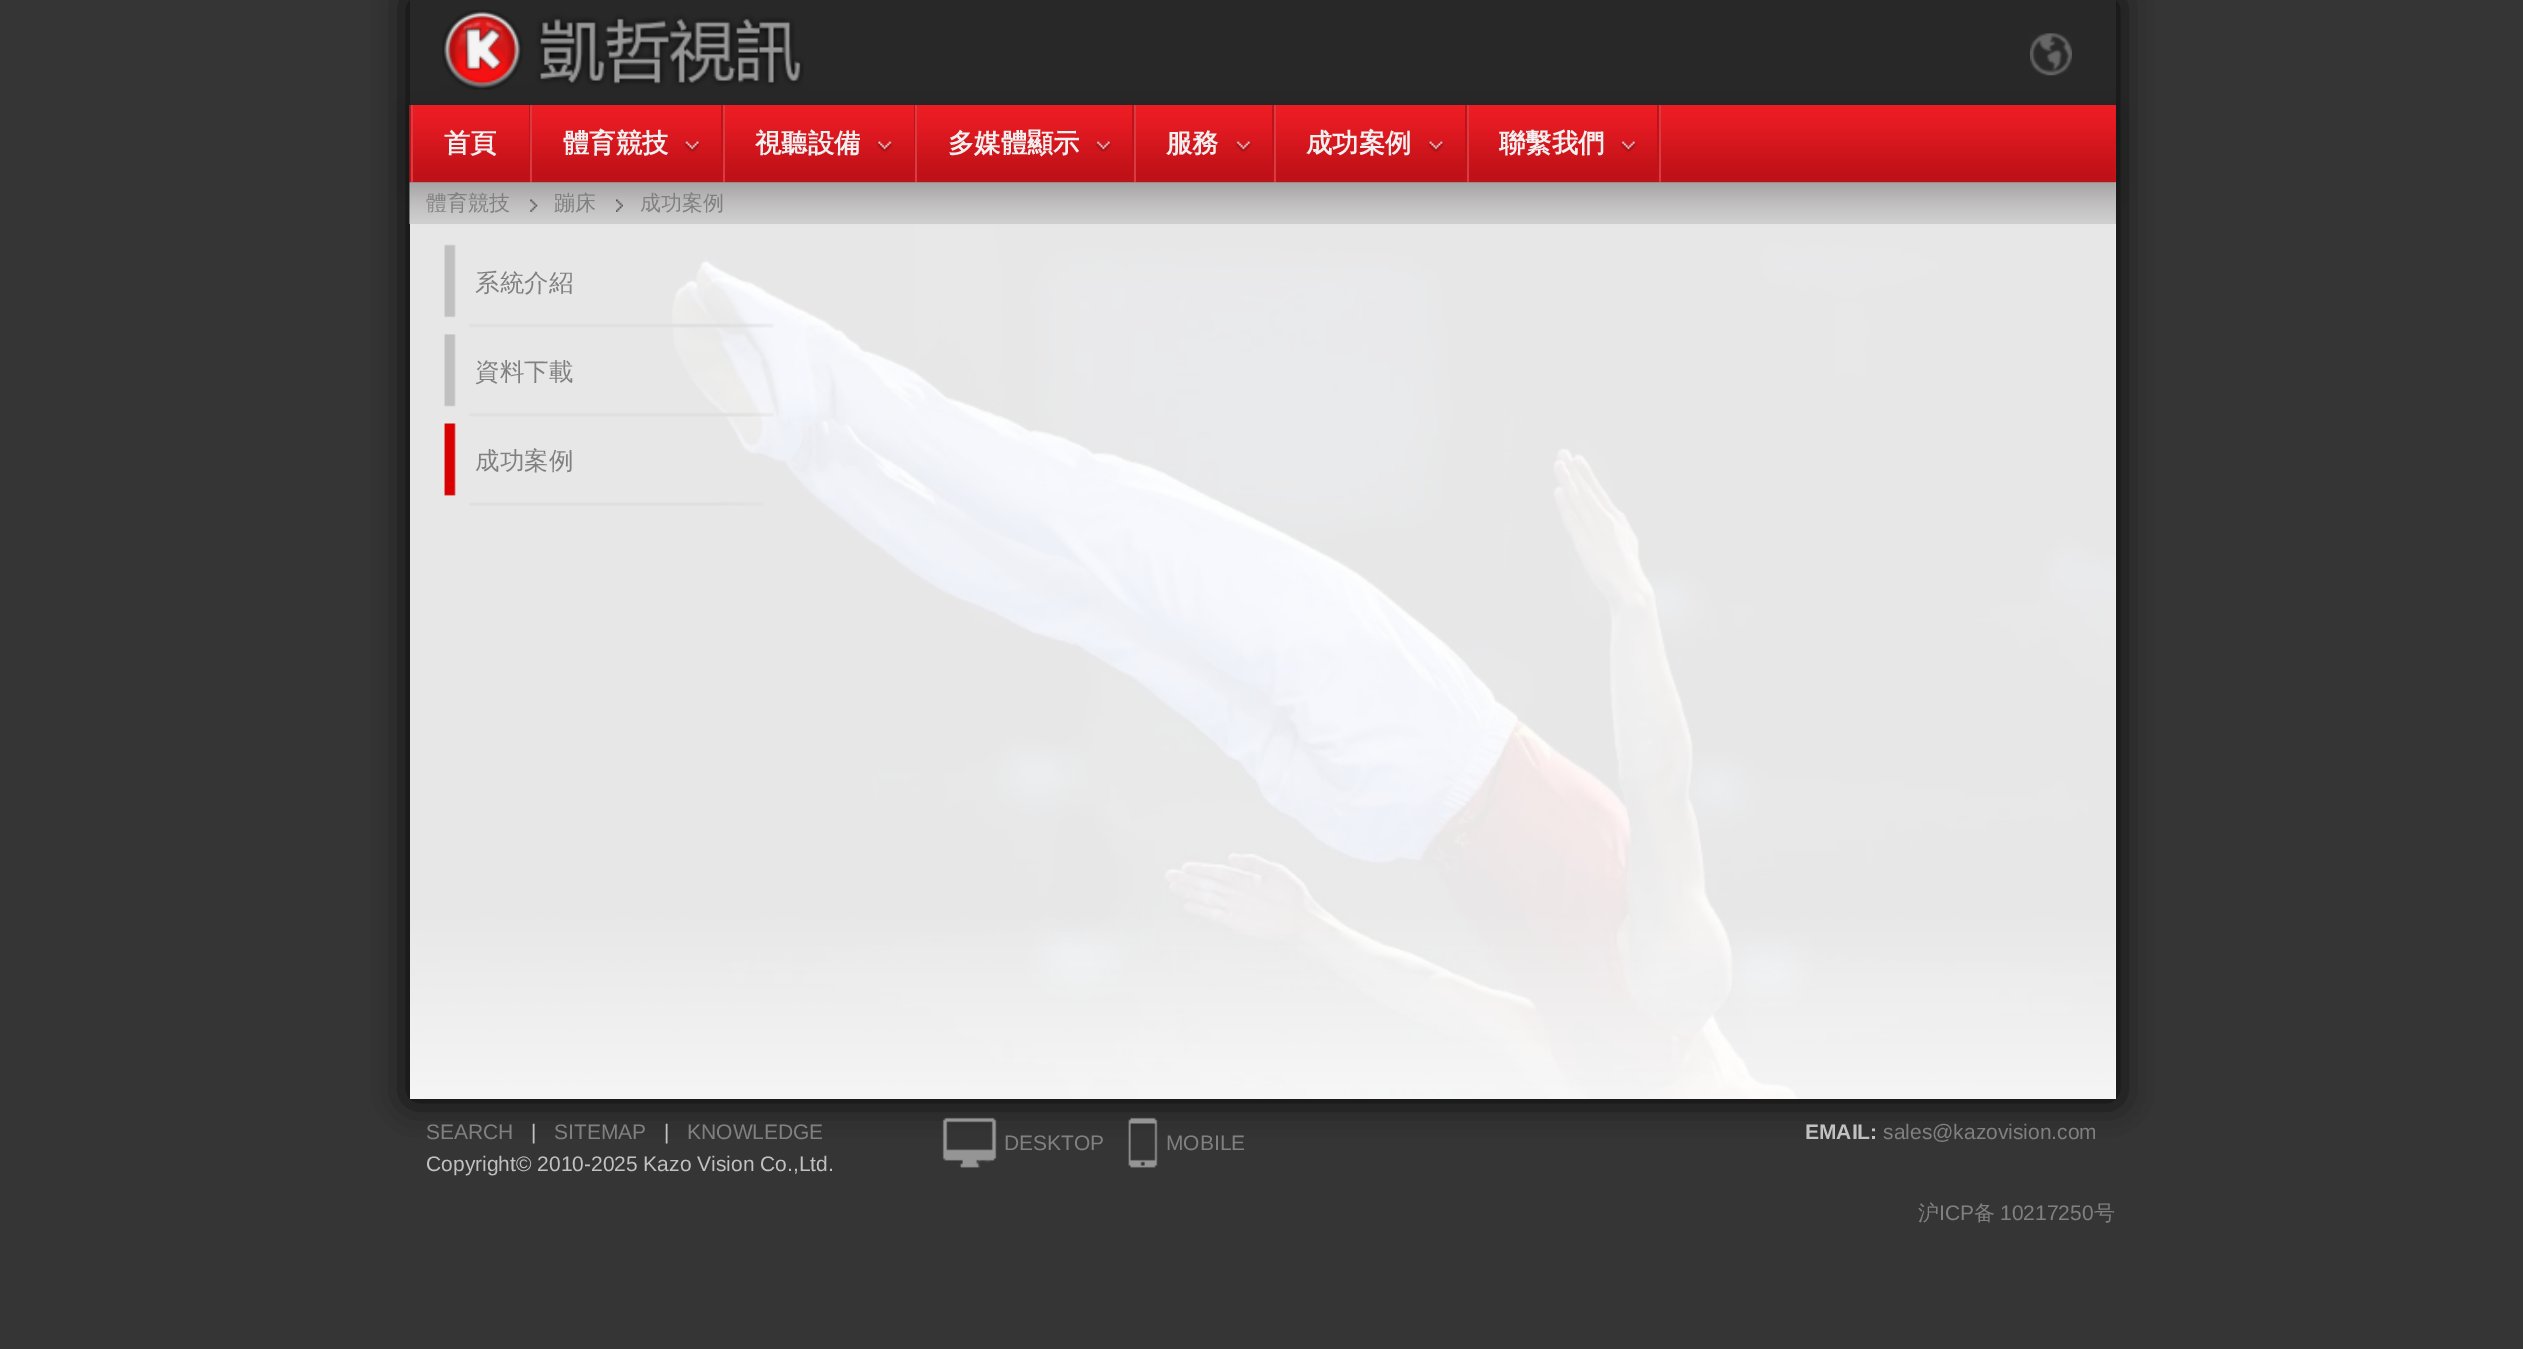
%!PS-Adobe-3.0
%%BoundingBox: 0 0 2523 1349
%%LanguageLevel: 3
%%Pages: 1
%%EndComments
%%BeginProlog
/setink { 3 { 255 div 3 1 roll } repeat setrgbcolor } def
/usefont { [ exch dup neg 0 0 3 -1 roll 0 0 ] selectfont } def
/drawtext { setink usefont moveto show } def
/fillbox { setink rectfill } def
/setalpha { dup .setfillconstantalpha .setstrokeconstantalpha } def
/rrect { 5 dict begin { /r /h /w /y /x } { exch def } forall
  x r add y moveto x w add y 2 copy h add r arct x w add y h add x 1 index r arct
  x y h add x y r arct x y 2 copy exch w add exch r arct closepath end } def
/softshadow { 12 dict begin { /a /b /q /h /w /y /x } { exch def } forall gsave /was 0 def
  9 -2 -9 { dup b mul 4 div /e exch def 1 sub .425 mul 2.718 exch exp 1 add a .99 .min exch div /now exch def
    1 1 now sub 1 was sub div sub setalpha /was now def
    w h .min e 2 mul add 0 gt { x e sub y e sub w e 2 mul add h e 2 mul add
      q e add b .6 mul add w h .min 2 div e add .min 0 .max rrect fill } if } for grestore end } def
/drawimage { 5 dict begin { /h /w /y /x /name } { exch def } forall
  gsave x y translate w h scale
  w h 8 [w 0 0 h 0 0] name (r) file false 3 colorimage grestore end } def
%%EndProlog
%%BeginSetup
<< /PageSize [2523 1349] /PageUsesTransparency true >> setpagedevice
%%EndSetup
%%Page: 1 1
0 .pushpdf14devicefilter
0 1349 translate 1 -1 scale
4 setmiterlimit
0 0 2523 1349 53 53 53 fillbox
0 0 0 setink
410 0 1706 1099 0 17.5 1 softshadow
410 105 1706 994 255 255 255 fillbox
410 0 1706 105 40 40 40 fillbox
0 0 0 setink
410 112 1706 77 0 17.5 0.2 softshadow
(assets/img1.rgb) 442 10 362 80 drawimage
(assets/img2.rgb) 2030 33 42 43 drawimage
(assets/img3.rgb) 409 105 1707 77 drawimage
1659 105 2 77 217 59 64 fillbox
410 105 1 77 192 18 25 fillbox
529 105 1 77 192 18 25 fillbox
411 105 2 77 217 59 64 fillbox
(首頁) 444 152 /WenQuanYiZenHei-Bold 26.25 240 240 240 drawtext
(assets/img4.rgb) 684 141 16 12 drawimage
721 105 2 77 192 18 25 fillbox
530 105 2 77 217 59 64 fillbox
(體育競技) 563 152 /WenQuanYiZenHei-Bold 26.25 240 240 240 drawtext
(assets/img5.rgb) 876 141 17 12 drawimage
914 105 1 77 192 18 25 fillbox
723 105 2 77 217 59 64 fillbox
(視聽設備) 755 152 /WenQuanYiZenHei-Bold 26.25 240 240 240 drawtext
(assets/img6.rgb) 1095 141 17 12 drawimage
1132 105 2 77 192 18 25 fillbox
915 105 2 77 217 59 64 fillbox
(多媒體顯示) 948 152 /WenQuanYiZenHei-Bold 26.25 240 240 240 drawtext
(assets/img6.rgb) 1235 141 17 12 drawimage
1272 105 2 77 192 18 25 fillbox
1134 105 2 77 217 59 64 fillbox
(服務) 1166 152 /WenQuanYiZenHei-Bold 26.25 240 240 240 drawtext
(assets/img7.rgb) 1428 141 16 12 drawimage
1465 105 2 77 192 18 25 fillbox
1274 105 2 77 217 59 64 fillbox
(成功案例) 1306 152 /WenQuanYiZenHei-Bold 26.25 240 240 240 drawtext
(assets/img6.rgb) 1620 141 17 12 drawimage
1657 105 2 77 192 18 25 fillbox
1467 105 2 77 217 59 64 fillbox
(聯繫我們) 1499 152 /WenQuanYiZenHei-Bold 26.25 240 240 240 drawtext
(assets/img8.rgb) 409 182 1707 42 drawimage
(體育競技) 426 210 /WenQuanYiZenHei-Medium 21 128 128 128 drawtext
(assets/img9.rgb) 530 199 8 13 drawimage
(蹦床) 554 210 /WenQuanYiZenHei-Medium 21 128 128 128 drawtext
(assets/img10.rgb) 616 199 7 13 drawimage
(成功案例) 640 210 /WenQuanYiZenHei-Medium 21 128 128 128 drawtext
(assets/img11.rgb) 410 224 1706 875 drawimage
(assets/img12.rgb) 444 244 330 84 drawimage
(系統介紹) 475 291 /WenQuanYiZenHei-Medium 24.5 128 128 128 drawtext
(assets/img13.rgb) 444 334 330 83 drawimage
(資料下載) 475 380 /WenQuanYiZenHei-Medium 24.5 128 128 128 drawtext
(assets/img14.rgb) 444 423 319 83 drawimage
(成功案例) 475 469 /WenQuanYiZenHei-Medium 24.5 128 128 128 drawtext
(SEARCH) 426 1139 /LiberationSans-Regular 21 128 128 128 drawtext
(|) 531 1139 /LiberationSans-Regular 21 193 193 193 drawtext
(SITEMAP) 554 1139 /LiberationSans-Regular 21 128 128 128 drawtext
(|) 664 1139 /LiberationSans-Regular 21 193 193 193 drawtext
(KNOWLEDGE) 687 1139 /LiberationSans-Regular 21 128 128 128 drawtext
(Copyright© 2010-2025 Kazo Vision Co.,Ltd.) 426 1171 /LiberationSans-Regular 21 193 193 193 drawtext
(assets/img15.rgb) 942 1117 55 51 drawimage
(DESKTOP) 1004 1150 /LiberationSans-Regular 21 128 128 128 drawtext
(assets/img16.rgb) 1128 1117 30 51 drawimage
(MOBILE) 1166 1150 /LiberationSans-Regular 21 128 128 128 drawtext
(EMAIL:) 1805 1139 /LiberationSans-Bold 21 193 193 193 drawtext
(sales@kazovision.com) 1883 1139 /LiberationSans-Regular 21 128 128 128 drawtext
(沪) 1918 1220 /WenQuanYiZenHei-Medium 21 128 128 128 drawtext
(ICP) 1939 1220 /LiberationSans-Regular 21 128 128 128 drawtext
(备) 1974 1220 /WenQuanYiZenHei-Medium 21 128 128 128 drawtext
(10217250) 2000 1220 /LiberationSans-Regular 21 128 128 128 drawtext
(号) 2094 1220 /WenQuanYiZenHei-Medium 21 128 128 128 drawtext
.poppdf14devicefilter showpage
%%EOF
